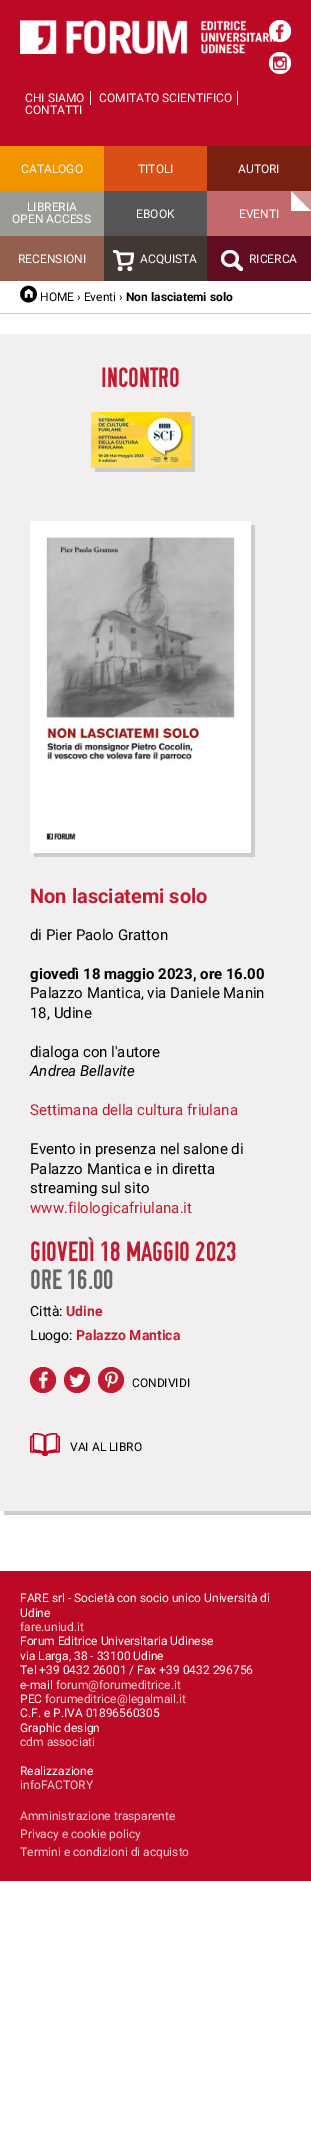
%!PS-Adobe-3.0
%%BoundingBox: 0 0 311 2132
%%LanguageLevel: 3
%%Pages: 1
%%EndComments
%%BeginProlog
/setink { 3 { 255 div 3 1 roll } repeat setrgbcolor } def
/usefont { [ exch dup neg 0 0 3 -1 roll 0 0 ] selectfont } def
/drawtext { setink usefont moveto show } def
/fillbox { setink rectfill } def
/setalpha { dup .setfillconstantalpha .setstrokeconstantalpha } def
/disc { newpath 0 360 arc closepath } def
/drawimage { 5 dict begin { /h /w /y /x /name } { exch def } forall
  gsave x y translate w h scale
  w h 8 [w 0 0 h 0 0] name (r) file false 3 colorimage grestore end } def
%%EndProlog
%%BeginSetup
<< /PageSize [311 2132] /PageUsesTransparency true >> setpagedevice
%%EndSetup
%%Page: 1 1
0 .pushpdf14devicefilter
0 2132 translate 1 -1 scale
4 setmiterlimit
0 0 311 2132 255 255 255 fillbox
0 0 311 146 188 10 38 fillbox
(assets/img1.rgb) 20 20 260 34 drawimage
255 255 255 setink
280 31 11 disc fill
(assets/img2.rgb) 275 24 9 16 drawimage
280 63 11 disc fill
(assets/img3.rgb) 273 56 14 15 drawimage
(CHI SIAMO) 25 102 /Roboto-Regular 12 255 255 255 drawtext
90 91 1 14 255 255 255 fillbox
(COMITATO SCIENTIFICO) 99 102 /Roboto-Regular 12 255 255 255 drawtext
237 91 1 14 255 255 255 fillbox
(CONTATTI) 25 114 /Roboto-Regular 12 255 255 255 drawtext
0 146 104 45 242 148 0 fillbox
(CATALOGO) 21 173 /Roboto-Regular 12 255 255 255 drawtext
104 146 103 45 216 79 23 fillbox
(TITOLI) 138 173 /Roboto-Regular 12 255 255 255 drawtext
207 146 104 45 122 32 16 fillbox
(AUTORI) 238 173 /Roboto-Regular 12 255 255 255 drawtext
0 191 104 45 154 155 148 fillbox
(LIBRERIA) 27 211 /Roboto-Regular 12 255 255 255 drawtext
(OPEN ACCESS) 12 223 /Roboto-Regular 12 255 255 255 drawtext
104 191 103 45 85 85 85 fillbox
(EBOOK) 136 218 /Roboto-Regular 12 255 255 255 drawtext
207 191 104 45 195 105 108 fillbox
213 150 152 setink
291 191 moveto 311 191 lineto 301 201 lineto closepath fill
0.3 setalpha
255 255 255 setink
311 191 moveto 311 211 lineto 301 201 lineto closepath fill
1 setalpha
311 211 moveto 291 211 lineto 301 201 lineto closepath fill
291 211 moveto 291 191 lineto 301 201 lineto closepath fill
(EVENTI) 239 218 /Roboto-Regular 12 255 255 255 drawtext
0 236 104 45 148 95 78 fillbox
(RECENSIONI) 18 263 /Roboto-Regular 12 255 255 255 drawtext
104 236 103 45 65 56 52 fillbox
(assets/img4.rgb) 113 250 21 21 drawimage
(ACQUISTA) 140 263 /Roboto-Regular 12 255 255 255 drawtext
207 236 104 45 97 12 33 fillbox
(assets/img5.rgb) 221 250 22 21 drawimage
(RICERCA) 249 263 /Roboto-Regular 12 255 255 255 drawtext
0 313 311 1 204 204 204 fillbox
(assets/img6.rgb) 20 285 17 18 drawimage
(HOME › Eventi ›) 40 301 /Roboto-Regular 12 0 0 0 drawtext
(Non lasciatemi solo) 126 301 /Roboto-Bold 12 0 0 0 drawtext
204 204 204 setink
4 1511 moveto 4 1515 lineto 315 1515 lineto 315 338 lineto 311 338 lineto 311 1511 lineto closepath fill
0 334 311 1177 241 239 239 fillbox
(INCONTRO) 101 387 /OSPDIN-Medium 28 193 28 49 drawtext
204 204 204 setink
95 468 moveto 95 472 lineto 195 472 lineto 195 416 lineto 191 416 lineto 191 468 lineto closepath fill
(assets/img7.rgb) 91 412 100 56 drawimage
34 853 moveto 34 857 lineto 255 857 lineto 255 525 lineto 251 525 lineto 251 853 lineto closepath fill
(assets/img8.rgb) 30 521 221 332 drawimage
(Non lasciatemi solo) 30 903 /Roboto-Bold 20 193 28 49 drawtext
(di Pier Paolo Gratton) 30 940 /Roboto-Regular 15 0 0 0 drawtext
(giovedì 18 maggio 2023, ore 16.00) 30 979 /Roboto-Bold 15 0 0 0 drawtext
(Palazzo Mantica, via Daniele Manin) 30 998 /Roboto-Regular 15 0 0 0 drawtext
(18, Udine) 30 1018 /Roboto-Regular 15 0 0 0 drawtext
(dialoga con l'autore) 30 1057 /Roboto-Regular 15 0 0 0 drawtext
(Andrea Bellavite) 30 1076 /Roboto-Italic 15 0 0 0 drawtext
(Settimana della cultura friulana) 30 1115 /Roboto-Regular 15 193 28 49 drawtext
(Evento in presenza nel salone di) 30 1154 /Roboto-Regular 15 0 0 0 drawtext
(Palazzo Mantica e in diretta) 30 1174 /Roboto-Regular 15 0 0 0 drawtext
(streaming sul sito) 30 1193 /Roboto-Regular 15 0 0 0 drawtext
(www.filologicafriulana.it) 30 1213 /Roboto-Regular 15 193 28 49 drawtext
(GIOVEDÌ 18 MAGGIO 2023) 30 1261 /OSPDIN-Medium 28 193 28 49 drawtext
(ORE 16.00) 30 1289 /OSPDIN-Medium 28 102 102 102 drawtext
(Città:) 30 1316 /Roboto-Regular 14 0 0 0 drawtext
(Udine) 66 1316 /Roboto-Bold 14 193 28 49 drawtext
(Luogo:) 30 1340 /Roboto-Regular 14 0 0 0 drawtext
(Palazzo Mantica) 76 1340 /Roboto-Bold 14 193 28 49 drawtext
43 1380 13 disc fill
(assets/img9.rgb) 38 1371 10 18 drawimage
77 1380 13 disc fill
(assets/img10.rgb) 69 1374 17 13 drawimage
111 1380 13 disc fill
(assets/img11.rgb) 105 1371 13 18 drawimage
(CONDIVIDI) 132 1387 /Roboto-Regular 12 0 0 0 drawtext
(assets/img12.rgb) 30 1433 30 23 drawimage
(VAI AL LIBRO) 70 1451 /Roboto-Regular 12 0 0 0 drawtext
0 1571 311 310 188 10 38 fillbox
(FARE srl - Società con socio unico Università di) 20 1602 /Roboto-Regular 12 255 255 255 drawtext
(Udine) 20 1617 /Roboto-Regular 12 255 255 255 drawtext
(fare.uniud.it) 20 1631 /Roboto-Regular 12 242 206 212 drawtext
(Forum Editrice Universitaria Udinese) 20 1645 /Roboto-Regular 12 255 255 255 drawtext
(via Larga, 38 - 33100 Udine) 20 1660 /Roboto-Regular 12 255 255 255 drawtext
(Tel +39 0432 26001 / Fax +39 0432 296756) 20 1674 /Roboto-Regular 12 255 255 255 drawtext
(e-mail) 20 1689 /Roboto-Regular 12 255 255 255 drawtext
(forum@forumeditrice.it) 56 1689 /Roboto-Regular 12 242 206 212 drawtext
(PEC) 20 1703 /Roboto-Regular 12 255 255 255 drawtext
(forumeditrice@legalmail.it) 45 1703 /Roboto-Regular 12 242 206 212 drawtext
(C.F. e P.IVA 01896560305) 20 1717 /Roboto-Regular 12 255 255 255 drawtext
(Graphic design) 20 1732 /Roboto-Regular 12 255 255 255 drawtext
(cdm associati) 20 1746 /Roboto-Regular 12 242 206 212 drawtext
(Realizzazione) 20 1775 /Roboto-Regular 12 255 255 255 drawtext
(infoFACTORY) 20 1789 /Roboto-Regular 12 242 206 212 drawtext
(Amministrazione trasparente) 20 1820 /Roboto-Regular 12 242 206 212 drawtext
(Privacy e cookie policy) 20 1838 /Roboto-Regular 12 242 206 212 drawtext
(Termini e condizioni di acquisto) 20 1856 /Roboto-Regular 12 242 206 212 drawtext
.poppdf14devicefilter showpage
%%EOF
